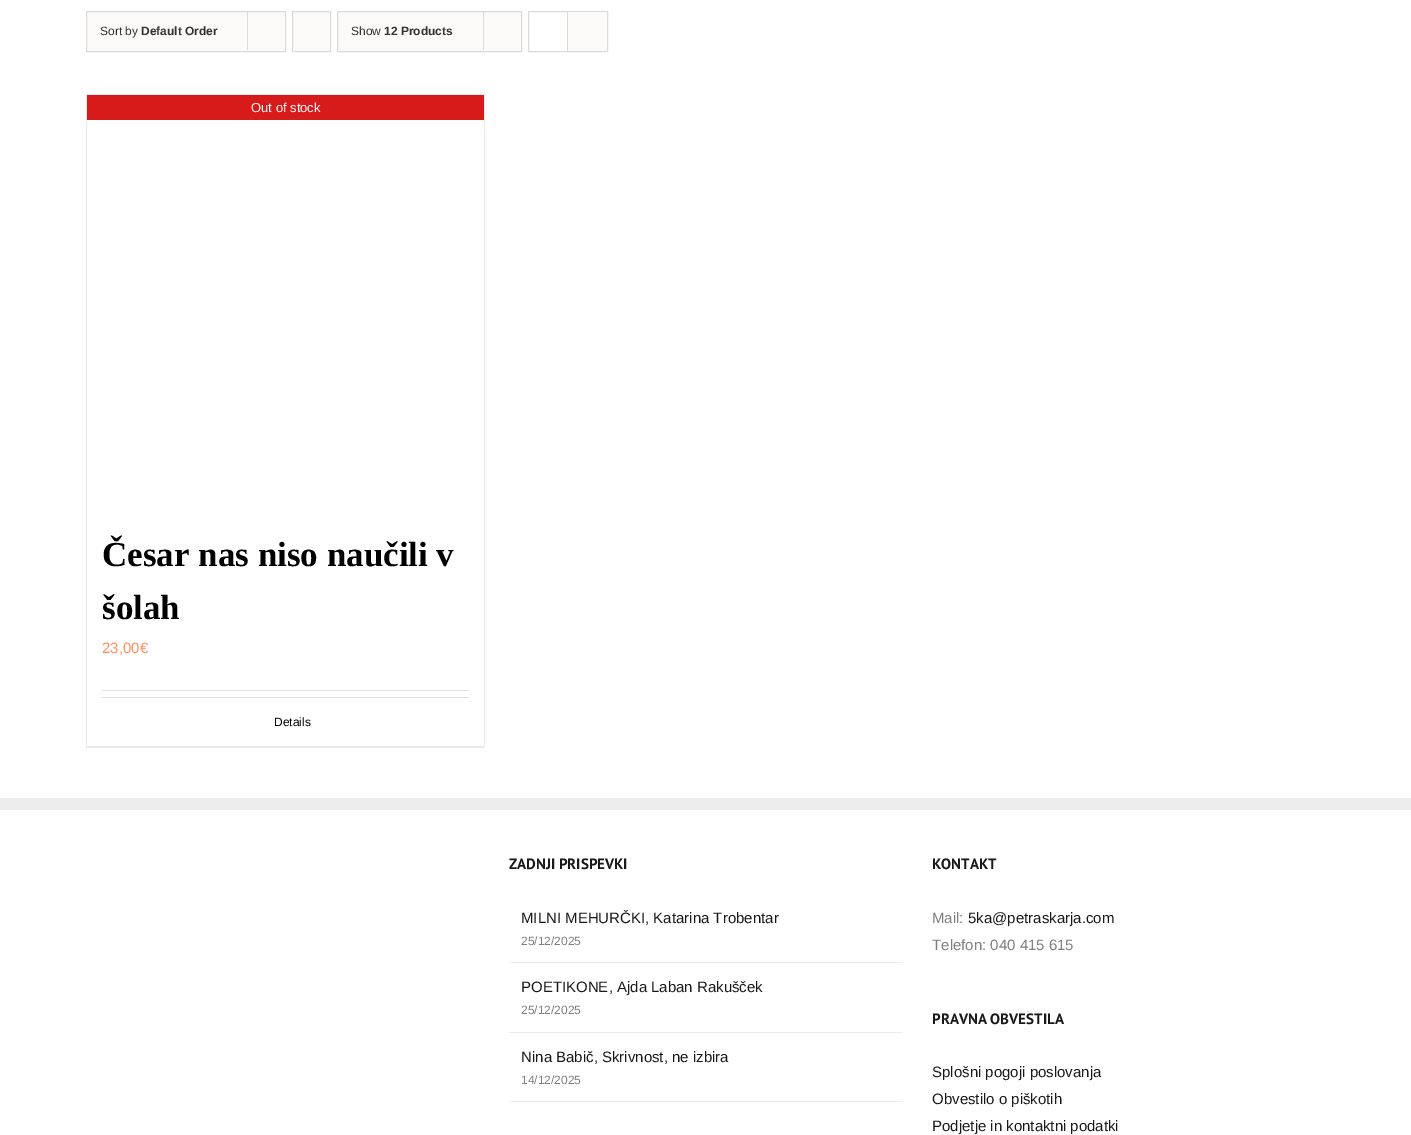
%!PS-Adobe-3.0
%%BoundingBox: 0 0 1411 1135
%%LanguageLevel: 3
%%Pages: 1
%%EndComments
%%BeginProlog
/setink { 3 { 255 div 3 1 roll } repeat setrgbcolor } def
/usefont { [ exch dup neg 0 0 3 -1 roll 0 0 ] selectfont } def
/drawtext { setink usefont moveto show } def
/fillbox { setink rectfill } def
%%EndProlog
%%BeginSetup
<< /PageSize [1411 1135] >> setpagedevice
%%EndSetup
%%Page: 1 1
0 1135 translate 1 -1 scale
4 setmiterlimit
0 0 1411 1135 255 255 255 fillbox
251 250 249 setink
86.5 11.5 moveto 285.5 11.5 lineto 285.5 51.5 lineto 86.5 51.5 lineto closepath gsave fill grestore
219 219 219 setink
stroke
(Sort by) 100 35 /LiberationSans-Regular 12 51 51 51 drawtext
(Default Order) 141 35 /LiberationSans-Bold 12 51 51 51 drawtext
247 11 1 39 219 219 219 fillbox
251 250 249 setink
292.5 11.5 moveto 330.5 11.5 lineto 330.5 51.5 lineto 292.5 51.5 lineto closepath gsave fill grestore
219 219 219 setink
stroke
251 250 249 setink
337.5 11.5 moveto 521.5 11.5 lineto 521.5 51.5 lineto 337.5 51.5 lineto closepath gsave fill grestore
219 219 219 setink
stroke
(Show) 351 35 /LiberationSans-Regular 12 51 51 51 drawtext
(12 Products) 384 35 /LiberationSans-Bold 12 51 51 51 drawtext
483 11 1 39 219 219 219 fillbox
528.5 11.5 79 40 rectstroke
567 12 1 39 219 219 219 fillbox
568 12 39 39 251 250 249 fillbox
86 94 399 1 235 234 234 fillbox
484 94 1 654 235 234 234 fillbox
86 746 399 2 235 234 234 fillbox
86 94 1 654 235 234 234 fillbox
87 95 397 25 215 26 26 fillbox
(Out of stock) 251 112 /LiberationSans-Regular 13 255 255 255 drawtext
(Česar nas niso naučili v) 102 566 /LiberationSerif-Bold 35 0 0 0 drawtext
(šolah) 102 619 /LiberationSerif-Bold 35 0 0 0 drawtext
(23,00€) 102 653 /LiberationSans-Regular 15 255 141 97 drawtext
102 690 367 1 224 222 222 fillbox
102 697 367 1 224 222 222 fillbox
(Details) 274 726 /LiberationSans-Regular 12 0 0 0 drawtext
0 798 1411 12 237 237 237 fillbox
(ZADNJI PRISPEVKI) 509 869 /PTSans-Bold 15 25 25 25 drawtext
509 962 393 1 237 237 237 fillbox
(MILNI MEHURČKI, Katarina Trobentar) 521 923 /LiberationSans-Regular 15 25 25 25 drawtext
(25/12/2025) 521 945 /LiberationSans-Regular 12 128 128 128 drawtext
509 1032 393 1 237 237 237 fillbox
(POETIKONE, Ajda Laban Rakušček) 521 992 /LiberationSans-Regular 15 25 25 25 drawtext
(25/12/2025) 521 1014 /LiberationSans-Regular 12 128 128 128 drawtext
509 1101 393 1 237 237 237 fillbox
(Nina Babič, Skrivnost, ne izbira) 521 1062 /LiberationSans-Regular 15 25 25 25 drawtext
(14/12/2025) 521 1084 /LiberationSans-Regular 12 128 128 128 drawtext
(KONTAKT) 932 869 /PTSans-Bold 15 25 25 25 drawtext
(Mail:) 932 923 /LiberationSans-Regular 15 128 128 128 drawtext
(5ka@petraskarja.com) 968 923 /LiberationSans-Regular 15 25 25 25 drawtext
(Telefon: 040 415 615) 932 950 /LiberationSans-Regular 15 128 128 128 drawtext
(PRAVNA OBVESTILA) 932 1024 /PTSans-Bold 15 25 25 25 drawtext
(Splošni pogoji poslovanja) 932 1077 /LiberationSans-Regular 15 25 25 25 drawtext
(Obvestilo o piškotih) 932 1104 /LiberationSans-Regular 15 25 25 25 drawtext
(Podjetje in kontaktni podatki) 932 1131 /LiberationSans-Regular 15 25 25 25 drawtext
showpage
%%EOF
